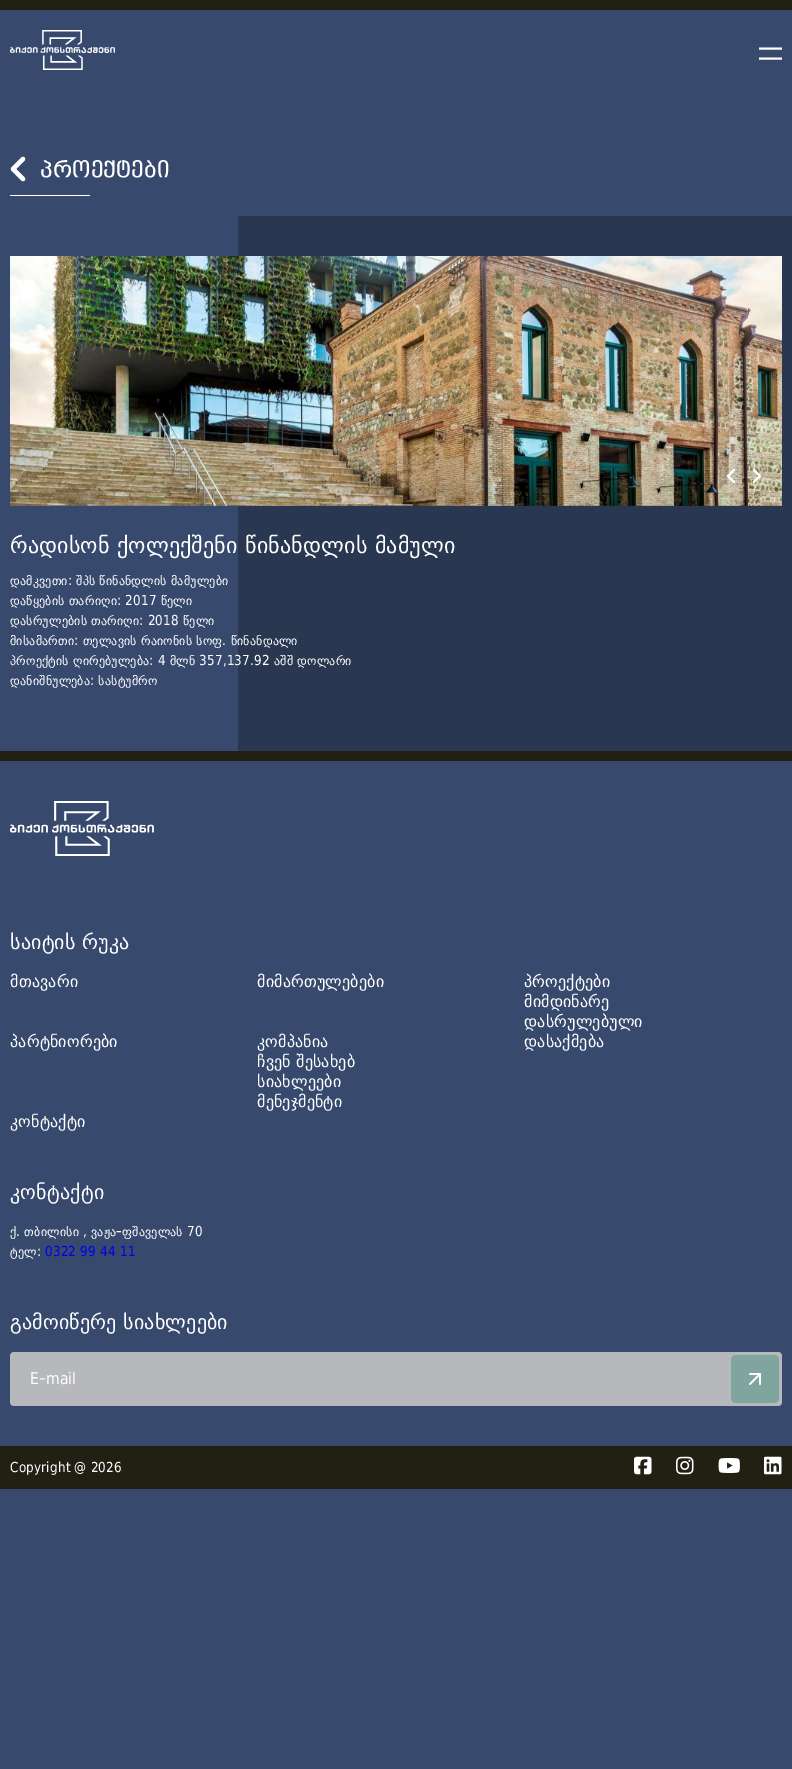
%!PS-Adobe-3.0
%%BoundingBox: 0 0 792 1769
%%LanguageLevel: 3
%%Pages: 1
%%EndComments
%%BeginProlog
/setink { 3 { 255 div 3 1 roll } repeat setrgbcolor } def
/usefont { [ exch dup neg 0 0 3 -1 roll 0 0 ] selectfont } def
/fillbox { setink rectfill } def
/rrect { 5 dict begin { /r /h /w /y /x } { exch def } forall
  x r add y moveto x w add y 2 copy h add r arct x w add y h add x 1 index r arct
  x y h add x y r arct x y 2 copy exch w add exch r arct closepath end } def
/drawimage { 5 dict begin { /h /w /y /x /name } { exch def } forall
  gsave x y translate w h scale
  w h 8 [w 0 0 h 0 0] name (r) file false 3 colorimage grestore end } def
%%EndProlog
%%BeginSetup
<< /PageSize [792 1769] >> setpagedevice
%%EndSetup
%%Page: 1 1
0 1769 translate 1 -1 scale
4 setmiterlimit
0 0 792 1769 55 73 109 fillbox
0 0 792 10 34 32 19 fillbox
(assets/img1.rgb) 10 30 105 40 drawimage
255 255 255 setink
2 setlinewidth
759 48.5 moveto 782 48.5 lineto 759 58.5 moveto 782 58.5 lineto stroke
0 751 792 10 34 32 19 fillbox
255 255 255 setink
4.4 setlinewidth
1 setlinecap
1 setlinejoin
23 179 moveto 13 169 lineto 23 159 lineto stroke
/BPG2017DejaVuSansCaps-Regular 20 usefont
40 177 moveto 0.2 0 (პროექტები) ashow
10 195 80 1 255 255 255 fillbox
238 216 554 535 41 55 81 fillbox
(assets/img2.rgb) 10 256 772 250 drawimage
255 255 255 setink
2 setlinewidth
734 482 moveto 728 476 lineto 734 470 lineto 754 470 moveto 760 476 lineto 754 482 lineto stroke
/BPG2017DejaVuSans-Regular 22 usefont
10 553 moveto 0.2 0 (რადისონ ქოლექშენი წინანდლის მამული) ashow
/BPG2017DejaVuSans-Regular 12 usefont
10 585 moveto 0.2 0 (დამკვეთი: შპს წინანდლის მამულები) ashow
10 605 moveto 0.2 0 (დაწყების თარიღი: 2017 წელი) ashow
10 625 moveto 0.2 0 (დასრულების თარიღი: 2018 წელი) ashow
10 645 moveto 0.2 0 (მისამართი: თელავის რაიონის სოფ. წინანდალი) ashow
10 665 moveto 0.2 0 (პროექტის ღირებულება: 4 მლნ 357,137.92 აშშ დოლარი) ashow
10 685 moveto 0.2 0 (დანიშნულება: სასტუმრო) ashow
(assets/img3.rgb) 10 801 144 55 drawimage
/BPG2017DejaVuSans-Regular 20 usefont
10 949 moveto 0.2 0 (საიტის რუკა) ashow
/BPG2017DejaVuSans-Regular 16 usefont
10 987 moveto 0.2 0 (მთავარი) ashow
257 987 moveto 0.2 0 (მიმართულებები) ashow
524 987 moveto 0.2 0 (პროექტები) ashow
524 1007 moveto 0.2 0 (მიმდინარე) ashow
524 1027 moveto 0.2 0 (დასრულებული) ashow
10 1047 moveto 0.2 0 (პარტნიორები) ashow
257 1047 moveto 0.2 0 (კომპანია) ashow
257 1067 moveto 0.2 0 (ჩვენ შესახებ) ashow
257 1087 moveto 0.2 0 (სიახლეები) ashow
257 1107 moveto 0.2 0 (მენეჯმენტი) ashow
524 1047 moveto 0.2 0 (დასაქმება) ashow
10 1127 moveto 0.2 0 (კონტაქტი) ashow
/BPG2017DejaVuSans-Regular 20 usefont
10 1199 moveto 0.2 0 (კონტაქტი) ashow
/BPG2017DejaVuSans-Regular 12 usefont
10 1236 moveto 0.2 0 (ქ. თბილისი , ვაჟა-ფშაველას 70) ashow
10 1256 moveto 0.2 0 (ტელ:) ashow
0 0 238 setink
45 1256 moveto 0.2 0 (0322 99 44 11) ashow
/BPG2017DejaVuSans-Regular 20 usefont
255 255 255 setink
10 1329 moveto 0.2 0 (გამოიწერე სიახლეები) ashow
182 184 187 setink
10 1352 772 54 4 rrect fill
/BPG2017DejaVuSans-Regular 14 usefont
255 255 255 setink
30 1384 moveto 0.2 0 (E-mail) ashow
128 164 158 setink
731 1355 48 48 5 rrect fill
(assets/img4.rgb) 749 1373 12 12 drawimage
0 1446 792 43 34 32 19 fillbox
/BPG2017DejaVuSans-Regular 12 usefont
255 255 255 setink
10 1472 moveto 0.2 0 (Copyright @ 2026) ashow
(assets/img5.rgb) 634 1456 18 19 drawimage
(assets/img6.rgb) 676 1456 18 19 drawimage
(assets/img7.rgb) 718 1458 22 15 drawimage
(assets/img8.rgb) 764 1456 18 19 drawimage
showpage
%%EOF
